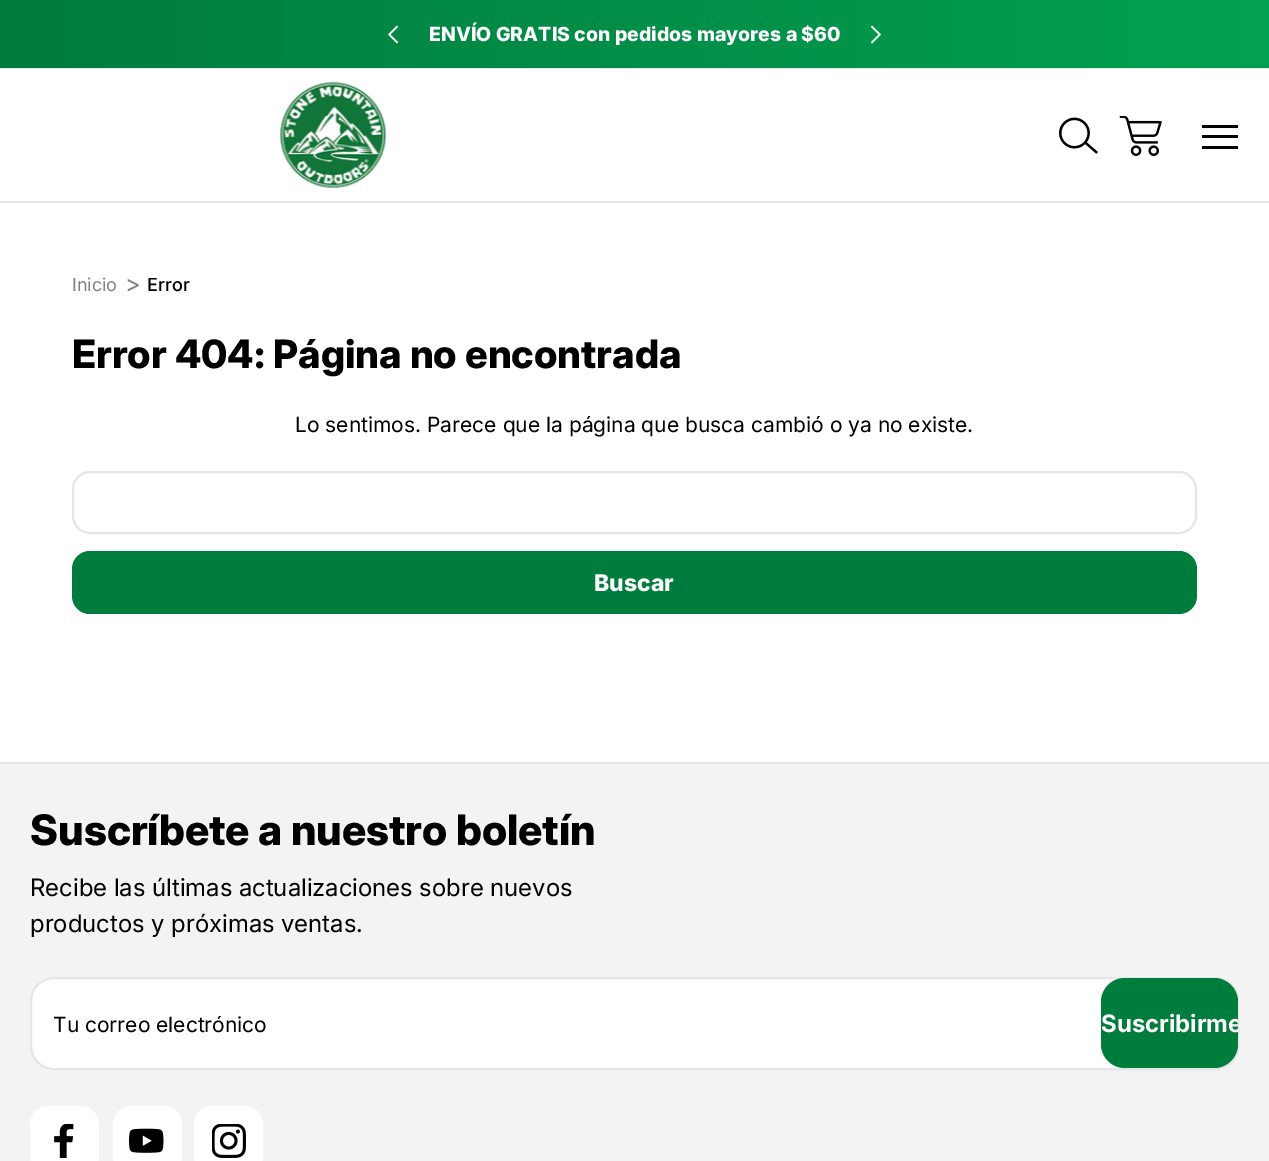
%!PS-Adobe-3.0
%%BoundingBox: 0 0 1269 1161
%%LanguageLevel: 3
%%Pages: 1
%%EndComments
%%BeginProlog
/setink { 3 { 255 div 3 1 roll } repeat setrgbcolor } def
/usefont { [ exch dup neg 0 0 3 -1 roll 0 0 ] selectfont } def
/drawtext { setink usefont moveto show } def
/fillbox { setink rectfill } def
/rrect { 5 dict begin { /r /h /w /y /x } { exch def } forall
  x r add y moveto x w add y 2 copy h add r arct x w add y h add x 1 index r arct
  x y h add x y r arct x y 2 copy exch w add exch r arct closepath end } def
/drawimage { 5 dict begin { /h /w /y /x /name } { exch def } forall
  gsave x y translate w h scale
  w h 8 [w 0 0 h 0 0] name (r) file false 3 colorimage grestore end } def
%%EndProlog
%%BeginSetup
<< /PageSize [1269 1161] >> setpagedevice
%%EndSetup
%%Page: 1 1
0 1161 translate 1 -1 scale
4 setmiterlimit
0 0 1269 1161 255 255 255 fillbox
0 201 1269 2 230 230 230 fillbox
gsave 0 0 moveto 1269 0 lineto 1269 68 lineto 0 68 lineto closepath clip newpath
<< /ShadingType 2 /ColorSpace /DeviceRGB /Coords [0 34 1269 34] /Extend [true true] /Function << /FunctionType 2 /Domain [0 1] /C0 [0 0.486 0.239] /C1 [0.008 0.631 0.314] /N 1 >> >> shfill grestore
0 68 1269 1 230 230 230 fillbox
255 255 255 setink
397 43.5 moveto 388 34.5 lineto 397 25.5 lineto 398 27 lineto 390.5 34.5 lineto 398 42 lineto closepath fill
(ENVÍO GRATIS con pedidos mayores a $60) 429 41 /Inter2-ExtraBold 19.5 255 255 255 drawtext
872 25.5 moveto 881 34.5 lineto 872 43.5 lineto 871 42 lineto 878.5 34.5 lineto 871 27 lineto closepath fill
(assets/img1.rgb) 280 82 106 106 drawimage
(assets/img2.rgb) 1059 117 39 37 drawimage
(assets/img3.rgb) 1119 116 43 40 drawimage
1202 135 36 3 0 0 0 fillbox
1202 125 36 3 0 0 0 fillbox
1202 146 36 3 0 0 0 fillbox
(Inicio) 72 291 /Inter-Regular 18 129 129 129 drawtext
(>) 125 292 /Inter-Regular 24 129 129 129 drawtext
(Error) 147 291 /Inter-Medium 18 0 0 0 drawtext
(Error 404: Página no encontrada) 72 368 /Inter-ExtraBold 39 0 0 0 drawtext
(Lo sentimos. Parece que la página que busca cambió o ya no existe.) 295 432 /Inter-Regular 21 0 0 0 drawtext
230 230 230 setink
2 setlinewidth
73 472 1123 61 17 rrect stroke
0 124 61 setink
72 551 1125 63 18 rrect fill
(Buscar) 594 591 /Inter2-ExtraBold 23 255 255 255 drawtext
0 762 1269 2 230 230 230 fillbox
0 764 1269 397 243 243 243 fillbox
(Suscríbete a nuestro boletín) 30 845 /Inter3-ExtraBold 42 0 0 0 drawtext
(Recibe las últimas actualizaciones sobre nuevos) 30 896 /Inter2-Regular 24 0 0 0 drawtext
(productos y próximas ventas.) 30 932 /Inter2-Regular 24 0 0 0 drawtext
255 255 255 setink
31 978 1207 91 23 rrect gsave fill grestore
230 230 230 setink
stroke
(Tu correo electrónico) 53 1032 /Inter-Regular 21 0 0 0 drawtext
0 124 61 setink
1101 978 137 90 24 rrect fill
gsave
1101 978 137 90 24 rrect clip newpath
(Suscribirme) 1101 1032 /Inter-Bold 24 255 255 255 drawtext
grestore
255 255 255 setink
30 1106 69 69 18 rrect fill
(assets/img4.rgb) 54 1124 20 34 drawimage
113 1106 69 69 18 rrect fill
(assets/img5.rgb) 129 1128 35 25 drawimage
194 1106 69 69 18 rrect fill
(assets/img6.rgb) 212 1124 34 34 drawimage
showpage
%%EOF
